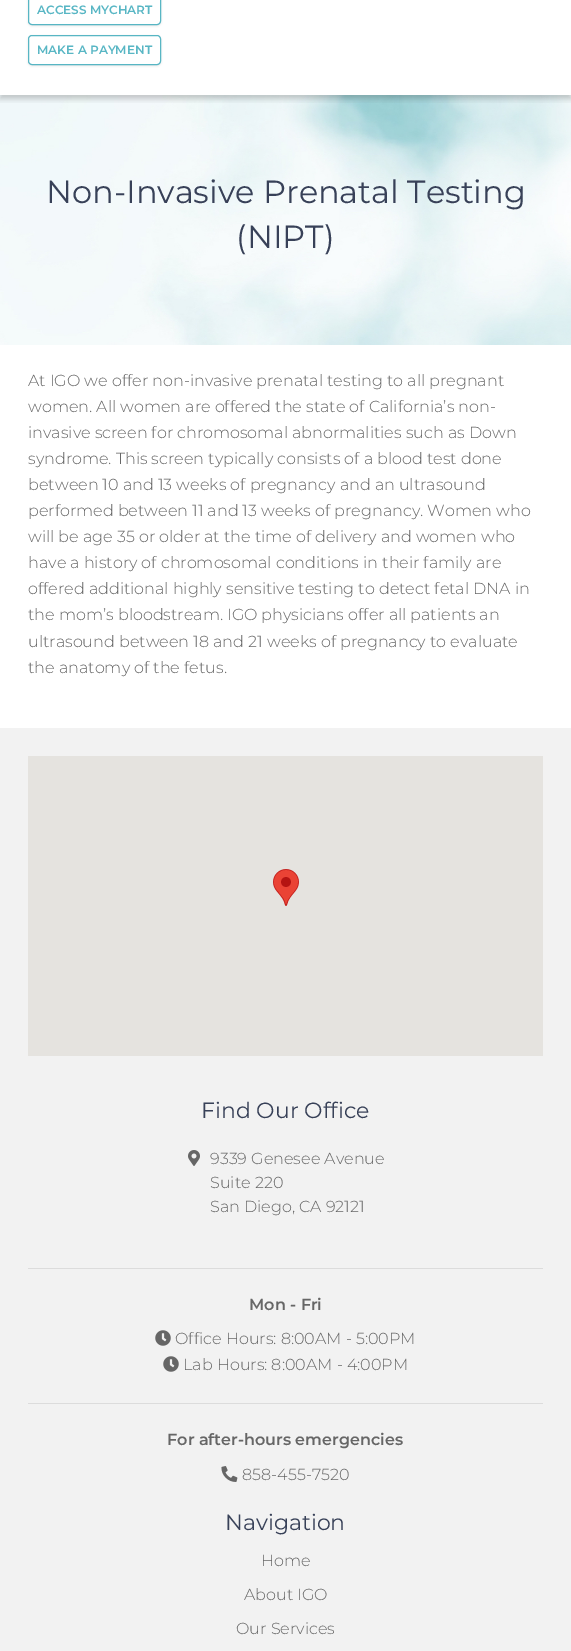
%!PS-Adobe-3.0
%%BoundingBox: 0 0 571 1651
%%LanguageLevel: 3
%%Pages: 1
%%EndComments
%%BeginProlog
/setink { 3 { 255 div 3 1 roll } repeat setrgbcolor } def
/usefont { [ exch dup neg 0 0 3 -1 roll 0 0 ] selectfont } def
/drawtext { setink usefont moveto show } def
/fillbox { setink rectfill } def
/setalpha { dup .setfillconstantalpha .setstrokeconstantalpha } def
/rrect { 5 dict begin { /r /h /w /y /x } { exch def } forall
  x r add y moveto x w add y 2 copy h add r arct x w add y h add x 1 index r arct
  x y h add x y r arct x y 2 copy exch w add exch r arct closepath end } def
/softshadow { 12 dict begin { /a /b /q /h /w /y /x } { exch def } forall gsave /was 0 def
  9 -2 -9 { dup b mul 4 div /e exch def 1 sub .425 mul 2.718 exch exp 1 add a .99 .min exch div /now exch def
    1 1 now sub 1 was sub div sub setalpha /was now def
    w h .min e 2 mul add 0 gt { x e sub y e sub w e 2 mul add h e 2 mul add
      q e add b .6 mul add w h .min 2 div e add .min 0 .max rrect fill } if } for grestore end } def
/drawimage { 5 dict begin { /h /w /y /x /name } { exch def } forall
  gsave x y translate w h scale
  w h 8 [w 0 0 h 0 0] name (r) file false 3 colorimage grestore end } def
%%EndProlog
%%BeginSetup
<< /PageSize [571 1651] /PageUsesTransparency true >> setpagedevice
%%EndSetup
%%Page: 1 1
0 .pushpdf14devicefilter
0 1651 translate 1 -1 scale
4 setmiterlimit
0 0 571 1651 255 255 255 fillbox
(assets/img1.rgb) 0 95 571 250 drawimage
gsave
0 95 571 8 rectclip
0 0 0 setink
0 -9 571 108 0 3 0.2 softshadow
grestore
gsave
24 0 moveto 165 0 lineto 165 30 lineto 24 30 lineto closepath 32 -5 moveto 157 -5 lineto 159 -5 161 -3 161 -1 curveto 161 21 lineto 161 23 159 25 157 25 curveto 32 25 lineto 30 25 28 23 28 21 curveto 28 -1 lineto 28 -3 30 -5 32 -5 curveto closepath eoclip newpath
0 0 0 setink
28 -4 133 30 4 1 0.1 softshadow
grestore
88 182 196 setink
28.5 -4.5 132 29 3.5 rrect stroke
(ACCESS MYCHART) 37 14 /Montserrat-SemiBold 12 88 182 196 drawtext
gsave
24 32 moveto 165 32 lineto 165 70 lineto 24 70 lineto closepath 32 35 moveto 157 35 lineto 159 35 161 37 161 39 curveto 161 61 lineto 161 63 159 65 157 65 curveto 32 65 lineto 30 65 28 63 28 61 curveto 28 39 lineto 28 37 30 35 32 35 curveto closepath eoclip newpath
0 0 0 setink
28 36 133 30 4 1 0.1 softshadow
grestore
28.5 35.5 132 29 3.5 rrect stroke
(MAKE A PAYMENT) 37 54 /Montserrat-SemiBold 12 88 182 196 drawtext
(Non-Invasive Prenatal Testing) 46 203 /Montserrat-Regular 32 56 65 88 drawtext
(\(NIPT\)) 236 248 /Montserrat-Regular 32 56 65 88 drawtext
(At IGO we offer non-invasive prenatal testing to all pregnant) 28 386 /Montserrat-Light 16 102 102 102 drawtext
(women. All women are offered the state of California’s non-) 28 412 /Montserrat-Light 16 102 102 102 drawtext
(invasive screen for chromosomal abnormalities such as Down) 28 438 /Montserrat-Light 16 102 102 102 drawtext
(syndrome. This screen typically consists of a blood test done) 28 464 /Montserrat-Light 16 102 102 102 drawtext
(between 10 and 13 weeks of pregnancy and an ultrasound) 28 490 /Montserrat-Light 16 102 102 102 drawtext
(performed between 11 and 13 weeks of pregnancy. Women who) 28 516 /Montserrat-Light 16 102 102 102 drawtext
(will be age 35 or older at the time of delivery and women who) 28 542 /Montserrat-Light 16 102 102 102 drawtext
(have a history of chromosomal conditions in their family are) 28 568 /Montserrat-Light 16 102 102 102 drawtext
(offered additional highly sensitive testing to detect fetal DNA in) 28 594 /Montserrat-Light 16 102 102 102 drawtext
(the mom’s bloodstream. IGO physicians offer all patients an) 28 620 /Montserrat-Light 16 102 102 102 drawtext
(ultrasound between 18 and 21 weeks of pregnancy to evaluate) 28 647 /Montserrat-Light 16 102 102 102 drawtext
(the anatomy of the fetus.) 28 673 /Montserrat-Light 16 102 102 102 drawtext
0 728 571 923 242 242 242 fillbox
28 756 515 300 229 227 223 fillbox
(assets/img2.rgb) 273 869 26 37 drawimage
(Find Our Office) 201 1118 /Montserrat-Regular 22 56 65 88 drawtext
(assets/img3.rgb) 188 1150 12 16 drawimage
(9339 Genesee Avenue) 210 1164 /Montserrat-Light 16 102 102 102 drawtext
(Suite 220) 210 1188 /Montserrat-Light 16 102 102 102 drawtext
(San Diego, CA 92121) 210 1212 /Montserrat-Light 16 102 102 102 drawtext
28 1268 515 1 220 220 220 fillbox
(Mon - Fri) 249 1310 /Montserrat-SemiBold 16 102 102 102 drawtext
(assets/img4.rgb) 155 1330 16 16 drawimage
(Office Hours: 8:00AM - 5:00PM) 175 1344 /Montserrat-Light 16 102 102 102 drawtext
(assets/img4.rgb) 163 1356 16 16 drawimage
(Lab Hours: 8:00AM - 4:00PM) 183 1370 /Montserrat-Light 16 102 102 102 drawtext
28 1403 515 1 220 220 220 fillbox
(For after-hours emergencies) 167 1445 /Montserrat-SemiBold 16 102 102 102 drawtext
(assets/img5.rgb) 221 1466 17 16 drawimage
(858-455-7520) 242 1480 /Montserrat-Light 16 102 102 102 drawtext
(Navigation) 225 1530 /Montserrat-Regular 22 56 65 88 drawtext
(Home) 261 1566 /Montserrat-Light 16 102 102 102 drawtext
(About IGO) 244 1600 /Montserrat-Light 16 102 102 102 drawtext
(Our Services) 236 1634 /Montserrat-Light 16 102 102 102 drawtext
.poppdf14devicefilter showpage
%%EOF
